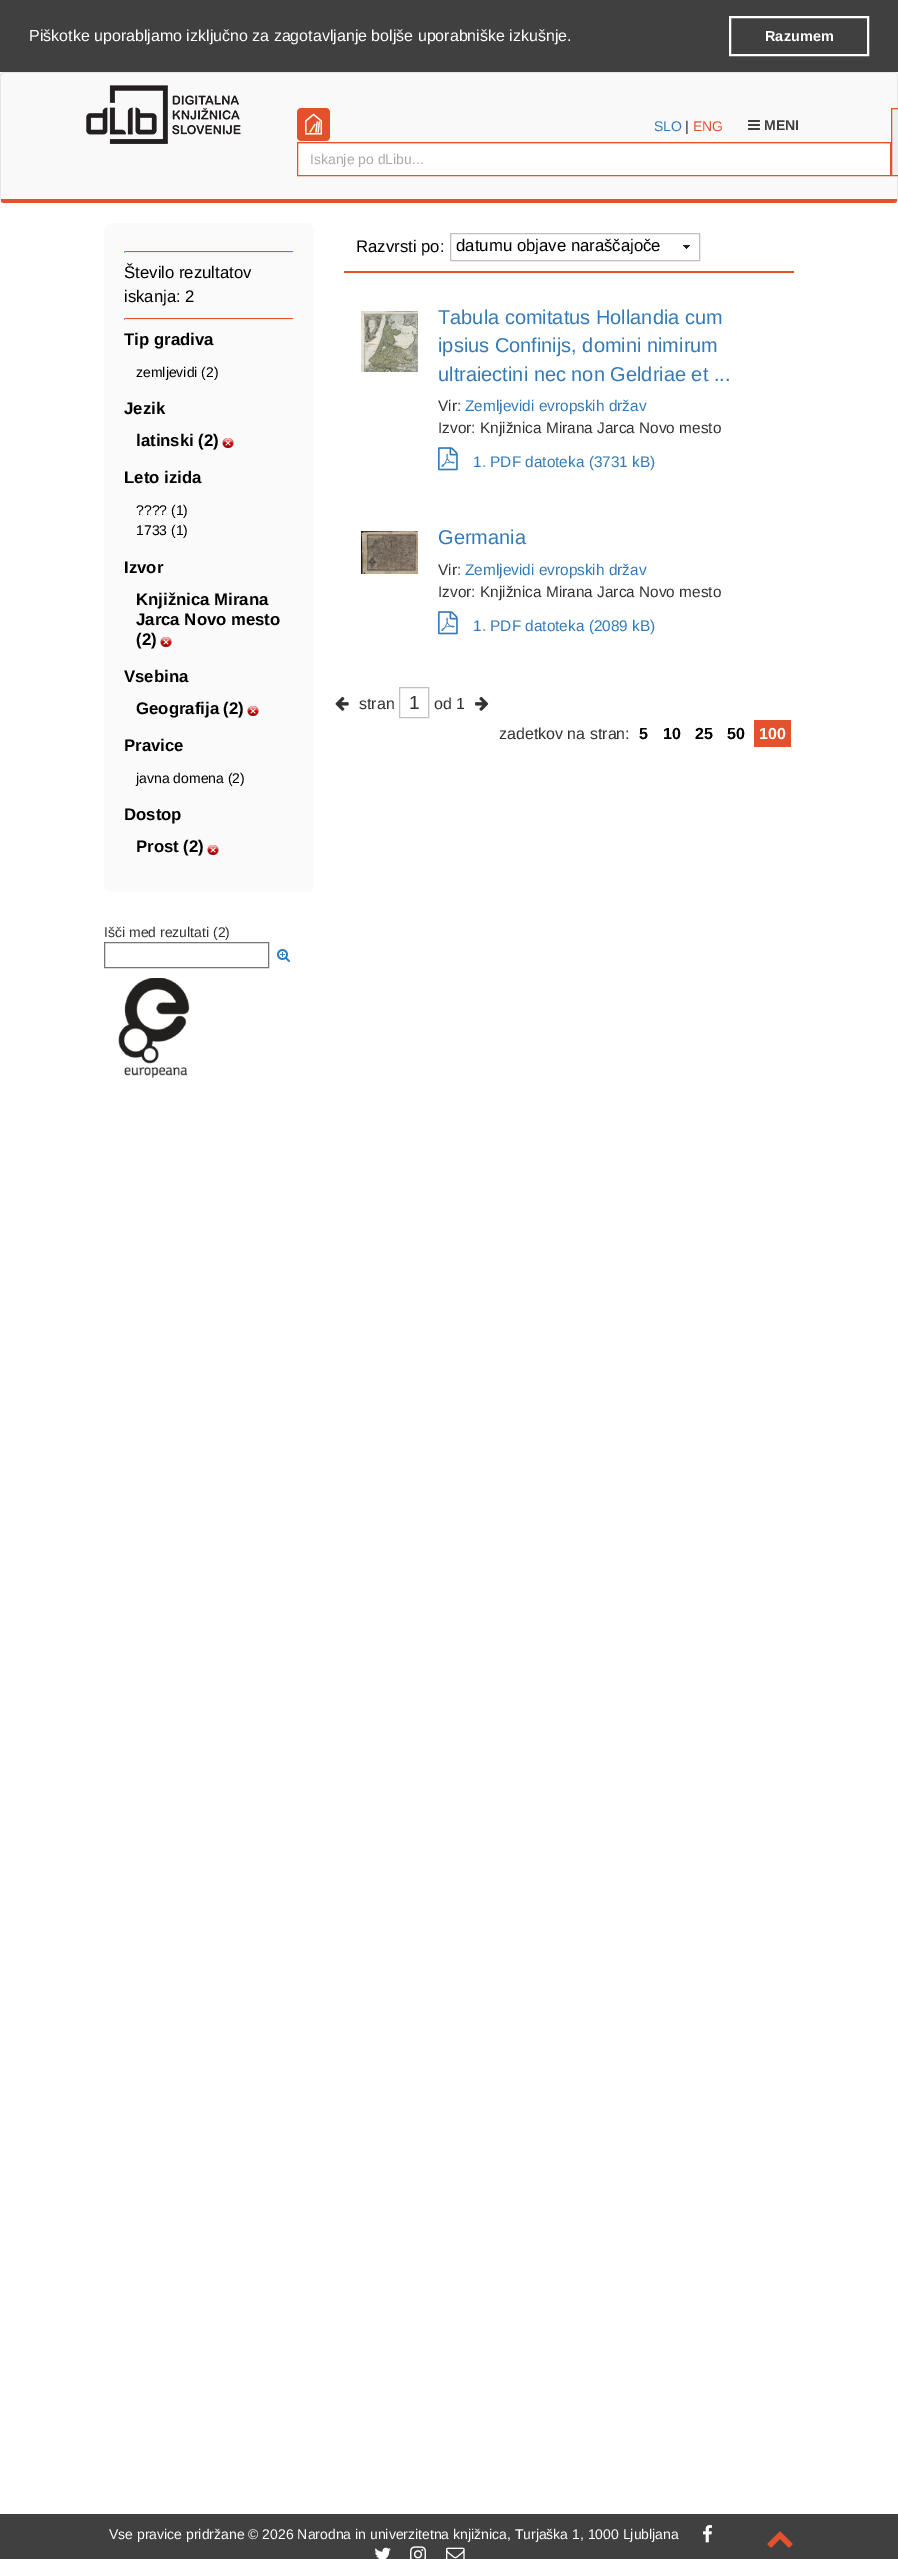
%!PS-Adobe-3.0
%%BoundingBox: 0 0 898 2559
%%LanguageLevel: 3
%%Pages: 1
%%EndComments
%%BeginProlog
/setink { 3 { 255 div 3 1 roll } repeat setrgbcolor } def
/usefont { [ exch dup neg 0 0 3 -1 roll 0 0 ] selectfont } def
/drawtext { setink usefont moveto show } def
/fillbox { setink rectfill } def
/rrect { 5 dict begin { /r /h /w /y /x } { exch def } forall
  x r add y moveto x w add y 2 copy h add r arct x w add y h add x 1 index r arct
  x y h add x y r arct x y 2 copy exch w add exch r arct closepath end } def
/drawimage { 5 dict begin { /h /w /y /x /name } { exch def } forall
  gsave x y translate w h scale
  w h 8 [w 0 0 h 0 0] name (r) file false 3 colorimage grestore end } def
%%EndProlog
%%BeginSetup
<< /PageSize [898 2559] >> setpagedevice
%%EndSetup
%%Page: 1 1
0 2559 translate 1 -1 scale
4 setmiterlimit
0 0 898 2559 255 255 255 fillbox
0 0 898 72 64 64 64 fillbox
(Piškotke uporabljamo izključno za zagotavljanje boljše uporabniške izkušnje.) 29 41 /LiberationSans-Regular 16 255 255 255 drawtext
2 setlinewidth
730 17 138 38 rectstroke
(Razumem) 765 41 /LiberationSans-Bold 14.5 255 255 255 drawtext
249 249 249 setink
4 73 moveto 894 73 lineto 896 73 897 74 897 76 curveto 897 199 lineto 1 199 lineto 1 76 lineto 1 74 2 73 4 73 curveto closepath fill
231 231 231 setink
4 72 moveto 1 73 lineto 2 74 lineto 4 73 lineto 894 73 lineto 896 74 lineto 897 73 lineto 894 72 lineto closepath fill
898 199 moveto 898 76 lineto 897 73 lineto 896 74 lineto 897 76 lineto 897 199 lineto 897 201 lineto closepath fill
227 81 45 setink
4 203 moveto 894 203 lineto 895 203 897 202 897 201 curveto 897 199 lineto 1 199 lineto 1 201 lineto 1 202 3 203 4 203 curveto closepath fill
231 231 231 setink
0 76 moveto 0 199 lineto 1 201 lineto 1 199 lineto 1 76 lineto 2 74 lineto 1 73 lineto closepath fill
(assets/img1.rgb) 86 85 155 59 drawimage
(SLO) 654 131 /LiberationSans-Regular 14 51 122 183 drawtext
(|) 685 131 /LiberationSans-Regular 14 51 51 51 drawtext
(ENG) 693 131 /LiberationSans-Regular 14 227 81 45 drawtext
(assets/img2.rgb) 748 120 12 10 drawimage
(MENI) 764 130 /LiberationSans-Bold 14 64 64 64 drawtext
(assets/img3.rgb) 297 108 33 33 drawimage
238 238 238 setink
891.5 108.5 moveto 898.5 108.5 lineto 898.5 175.5 lineto 891.5 175.5 lineto closepath gsave fill grestore
227 81 45 setink
1 setlinewidth
stroke
298 144 592 31 255 255 255 fillbox
298 143 592 1 236 236 236 fillbox
227 81 45 setink
297.5 142.5 593 33 rectstroke
(Iskanje po dLibu...) 310 164 /LiberationSans-Regular 14 170 170 170 drawtext
250 250 250 setink
104 223 210 669 8 rrect fill
124 251 170 1 227 81 45 fillbox
293 251 1 2 238 238 238 fillbox
124 252 170 1 238 238 238 fillbox
124 251 1 2 159 159 159 fillbox
(Število rezultatov) 124 278 /LiberationSans-Regular 16.75 0 0 0 drawtext
(iskanja: 2) 124 302 /LiberationSans-Regular 16.75 0 0 0 drawtext
124 318 170 1 227 81 45 fillbox
293 318 1 2 238 238 238 fillbox
124 319 170 1 238 238 238 fillbox
124 318 1 2 159 159 159 fillbox
(Tip gradiva) 124 345 /LiberationSans-Bold 16.75 0 0 0 drawtext
(zemljevidi \(2\)) 136 377 /LiberationSans-Regular 14 0 0 0 drawtext
(Jezik) 124 414 /LiberationSans-Bold 16.75 0 0 0 drawtext
(latinski \(2\)) 136 446 /LiberationSans-Bold 16.75 0 0 0 drawtext
(assets/img4.rgb) 222 438 12 10 drawimage
(Leto izida) 124 483 /LiberationSans-Bold 16.75 0 0 0 drawtext
(???? \(1\)) 136 515 /LiberationSans-Regular 14 0 0 0 drawtext
(1733 \(1\)) 136 535 /LiberationSans-Regular 14 0 0 0 drawtext
(Izvor) 124 573 /LiberationSans-Bold 16.75 0 0 0 drawtext
(Knjižnica Mirana) 136 605 /LiberationSans-Bold 16.75 0 0 0 drawtext
(Jarca Novo mesto) 136 625 /LiberationSans-Bold 16.75 0 0 0 drawtext
(\(2\)) 136 645 /LiberationSans-Bold 16.75 0 0 0 drawtext
(assets/img4.rgb) 160 637 12 10 drawimage
(Vsebina) 124 682 /LiberationSans-Bold 16.75 0 0 0 drawtext
(Geografija \(2\)) 136 714 /LiberationSans-Bold 16.75 0 0 0 drawtext
(assets/img4.rgb) 247 706 12 10 drawimage
(Pravice) 124 751 /LiberationSans-Bold 16.75 0 0 0 drawtext
(javna domena \(2\)) 136 783 /LiberationSans-Regular 14 0 0 0 drawtext
(Dostop) 124 820 /LiberationSans-Bold 16.75 0 0 0 drawtext
(Prost \(2\)) 136 852 /LiberationSans-Bold 16.75 0 0 0 drawtext
(assets/img4.rgb) 207 845 12 10 drawimage
(Išči med rezultati \(2\)) 104 937 /LiberationSans-Regular 14 51 51 51 drawtext
118 118 118 setink
104.5 942.5 164 25 rectstroke
(assets/img5.rgb) 277 949 13 13 drawimage
(assets/img6.rgb) 118 978 72 100 drawimage
344 271 450 2 227 81 45 fillbox
(Razvrsti po:) 356 252 /LiberationSans-Regular 16.75 0 0 0 drawtext
192 192 192 setink
450.5 233.5 249 27 rectstroke
gsave
456 234 205 20 rectclip
(datumu objave naraščajoče) 456 251 /LiberationSans-Regular 16.75 0 0 0 drawtext
grestore
(assets/img7.rgb) 683 245 7 4 drawimage
(assets/img8.rgb) 361 311 57 61 drawimage
(Tabula comitatus Hollandia cum) 438 324 /LiberationSans-Regular 20 51 122 183 drawtext
(ipsius Confinijs, domini nimirum) 438 352 /LiberationSans-Regular 20 51 122 183 drawtext
(ultraiectini nec non Geldriae et ...) 438 381 /LiberationSans-Regular 20 51 122 183 drawtext
(Vir:) 438 411 /LiberationSans-Regular 15.4 51 51 51 drawtext
(Zemljevidi evropskih držav) 465 411 /LiberationSans-Regular 15.4 51 122 183 drawtext
(Izvor: Knjižnica Mirana Jarca Novo mesto) 438 433 /LiberationSans-Regular 15.4 51 51 51 drawtext
(assets/img9.rgb) 438 447 20 24 drawimage
(1. PDF datoteka \(3731 kB\)) 473 467 /LiberationSans-Regular 15.4 51 122 183 drawtext
(assets/img10.rgb) 361 531 57 43 drawimage
(Germania) 438 544 /LiberationSans-Regular 20 51 122 183 drawtext
(Vir:) 438 575 /LiberationSans-Regular 15.4 51 51 51 drawtext
(Zemljevidi evropskih držav) 465 575 /LiberationSans-Regular 15.4 51 122 183 drawtext
(Izvor: Knjižnica Mirana Jarca Novo mesto) 438 597 /LiberationSans-Regular 15.4 51 51 51 drawtext
(assets/img9.rgb) 438 611 20 24 drawimage
(1. PDF datoteka \(2089 kB\)) 473 631 /LiberationSans-Regular 15.4 51 122 183 drawtext
(assets/img11.rgb) 335 696 14 15 drawimage
(stran) 359 709 /LiberationSans-Regular 16 51 51 51 drawtext
192 192 192 setink
399.5 687.5 29 30 rectstroke
(1) 409 709 /LiberationSans-Regular 19 51 51 51 drawtext
(od 1) 434 709 /LiberationSans-Regular 16 51 51 51 drawtext
(assets/img12.rgb) 475 696 14 15 drawimage
(zadetkov na stran:) 499 739 /LiberationSans-Regular 16 51 51 51 drawtext
(5) 639 739 /LiberationSans-Bold 16 0 0 0 drawtext
(10) 663 739 /LiberationSans-Bold 16 0 0 0 drawtext
(25) 695 739 /LiberationSans-Bold 16 0 0 0 drawtext
(50) 727 739 /LiberationSans-Bold 16 0 0 0 drawtext
754 720 37 27 227 81 45 fillbox
(100) 759 739 /LiberationSans-Bold 16 255 255 255 drawtext
0 2514 898 45 64 64 64 fillbox
(Vse pravice pridržane © 2026 Narodna in univerzitetna knjižnica, Turjaška 1, 1000 Ljubljana) 109 2539 /LiberationSans-Regular 14 255 255 255 drawtext
(assets/img13.rgb) 703 2525 9 18 drawimage
(assets/img14.rgb) 375 2547 16 12 drawimage
(assets/img15.rgb) 410 2546 16 13 drawimage
(assets/img16.rgb) 446 2547 19 12 drawimage
(assets/img17.rgb) 767 2531 26 17 drawimage
showpage
%%EOF
